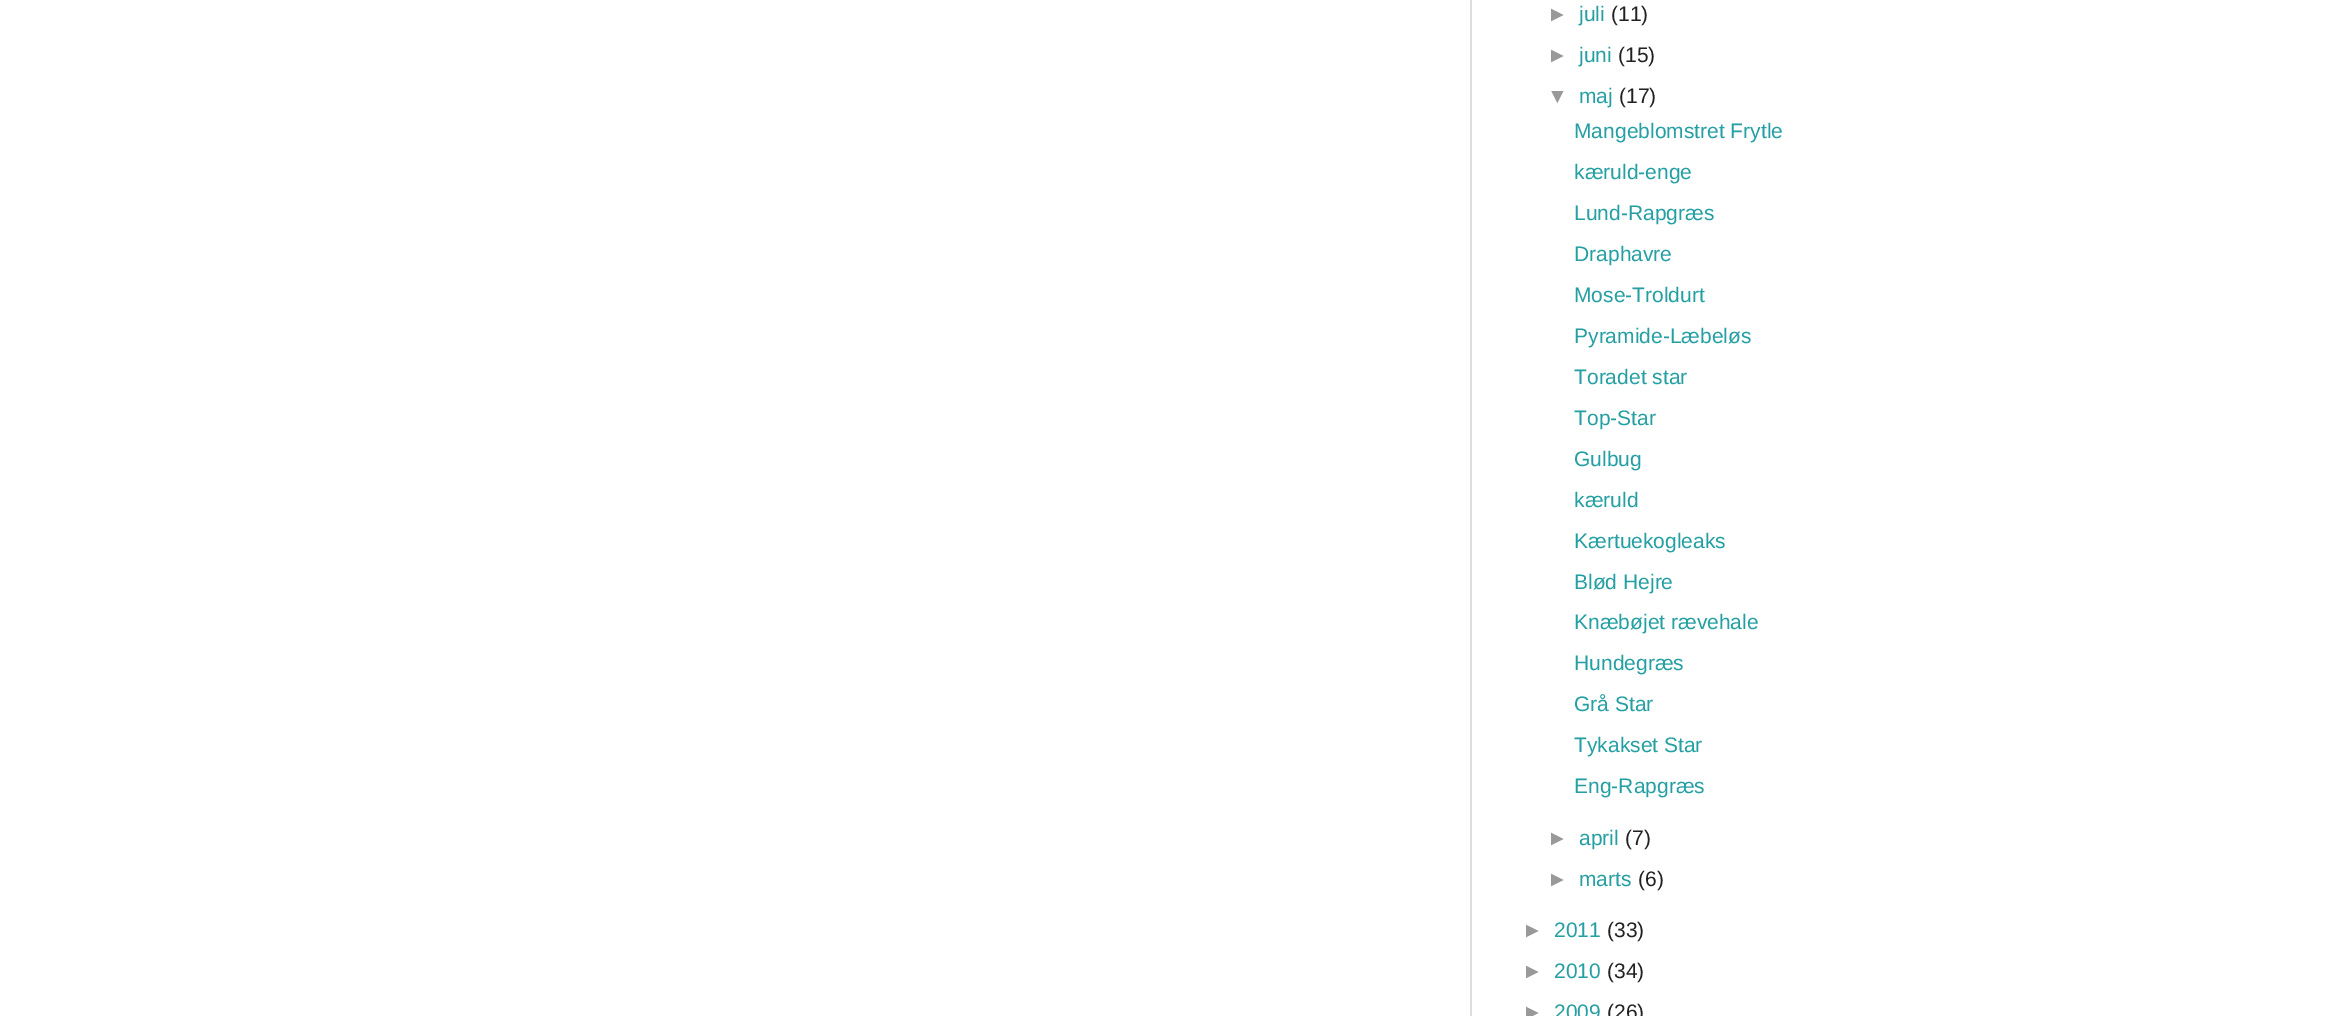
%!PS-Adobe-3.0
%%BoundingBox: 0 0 2342 1016
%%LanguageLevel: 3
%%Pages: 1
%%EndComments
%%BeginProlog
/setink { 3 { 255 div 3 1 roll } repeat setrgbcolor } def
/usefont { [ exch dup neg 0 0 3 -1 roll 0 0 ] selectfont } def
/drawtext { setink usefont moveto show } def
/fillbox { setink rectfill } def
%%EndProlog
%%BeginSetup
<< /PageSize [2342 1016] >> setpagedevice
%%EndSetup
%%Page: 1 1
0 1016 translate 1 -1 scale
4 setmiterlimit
0 0 2342 1016 255 255 255 fillbox
1470 0 2 1016 221 221 221 fillbox
(►) 1547 21 /LiberationSans-Regular 21 153 153 153 drawtext
(juli) 1579 21 /LiberationSans-Regular 21 36 159 163 drawtext
(\(11\)) 1611 21 /LiberationSans-Regular 21 34 34 34 drawtext
(►) 1547 62 /LiberationSans-Regular 21 153 153 153 drawtext
(juni) 1579 62 /LiberationSans-Regular 21 36 159 163 drawtext
(\(15\)) 1618 62 /LiberationSans-Regular 21 34 34 34 drawtext
(▼) 1547 103 /LiberationSans-Regular 21 153 153 153 drawtext
(maj) 1579 103 /LiberationSans-Regular 21 36 159 163 drawtext
(\(17\)) 1619 103 /LiberationSans-Regular 21 34 34 34 drawtext
(Mangeblomstret Frytle) 1574 138 /LiberationSans-Regular 21 36 159 163 drawtext
(kæruld-enge) 1574 179 /LiberationSans-Regular 21 36 159 163 drawtext
(Lund-Rapgræs) 1574 220 /LiberationSans-Regular 21 36 159 163 drawtext
(Draphavre) 1574 261 /LiberationSans-Regular 21 36 159 163 drawtext
(Mose-Troldurt) 1574 302 /LiberationSans-Regular 21 36 159 163 drawtext
(Pyramide-Læbeløs) 1574 343 /LiberationSans-Regular 21 36 159 163 drawtext
(Toradet star) 1574 384 /LiberationSans-Regular 21 36 159 163 drawtext
(Top-Star) 1574 425 /LiberationSans-Regular 21 36 159 163 drawtext
(Gulbug) 1574 466 /LiberationSans-Regular 21 36 159 163 drawtext
(kæruld) 1574 507 /LiberationSans-Regular 21 36 159 163 drawtext
(Kærtuekogleaks) 1574 548 /LiberationSans-Regular 21 36 159 163 drawtext
(Blød Hejre) 1574 589 /LiberationSans-Regular 21 36 159 163 drawtext
(Knæbøjet rævehale) 1574 629 /LiberationSans-Regular 21 36 159 163 drawtext
(Hundegræs) 1574 670 /LiberationSans-Regular 21 36 159 163 drawtext
(Grå Star) 1574 711 /LiberationSans-Regular 21 36 159 163 drawtext
(Tykakset Star) 1574 752 /LiberationSans-Regular 21 36 159 163 drawtext
(Eng-Rapgræs) 1574 793 /LiberationSans-Regular 21 36 159 163 drawtext
(►) 1547 845 /LiberationSans-Regular 21 153 153 153 drawtext
(april) 1579 845 /LiberationSans-Regular 21 36 159 163 drawtext
(\(7\)) 1625 845 /LiberationSans-Regular 21 34 34 34 drawtext
(►) 1547 886 /LiberationSans-Regular 21 153 153 153 drawtext
(marts) 1579 886 /LiberationSans-Regular 21 36 159 163 drawtext
(\(6\)) 1638 886 /LiberationSans-Regular 21 34 34 34 drawtext
(►) 1522 937 /LiberationSans-Regular 21 153 153 153 drawtext
(2011) 1554 937 /LiberationSans-Regular 21 36 159 163 drawtext
(\(33\)) 1607 937 /LiberationSans-Regular 21 34 34 34 drawtext
(►) 1522 978 /LiberationSans-Regular 21 153 153 153 drawtext
(2010) 1554 978 /LiberationSans-Regular 21 36 159 163 drawtext
(\(34\)) 1607 978 /LiberationSans-Regular 21 34 34 34 drawtext
(►) 1522 1019 /LiberationSans-Regular 21 153 153 153 drawtext
(2009) 1554 1019 /LiberationSans-Regular 21 36 159 163 drawtext
(\(26\)) 1607 1019 /LiberationSans-Regular 21 34 34 34 drawtext
showpage
%%EOF
